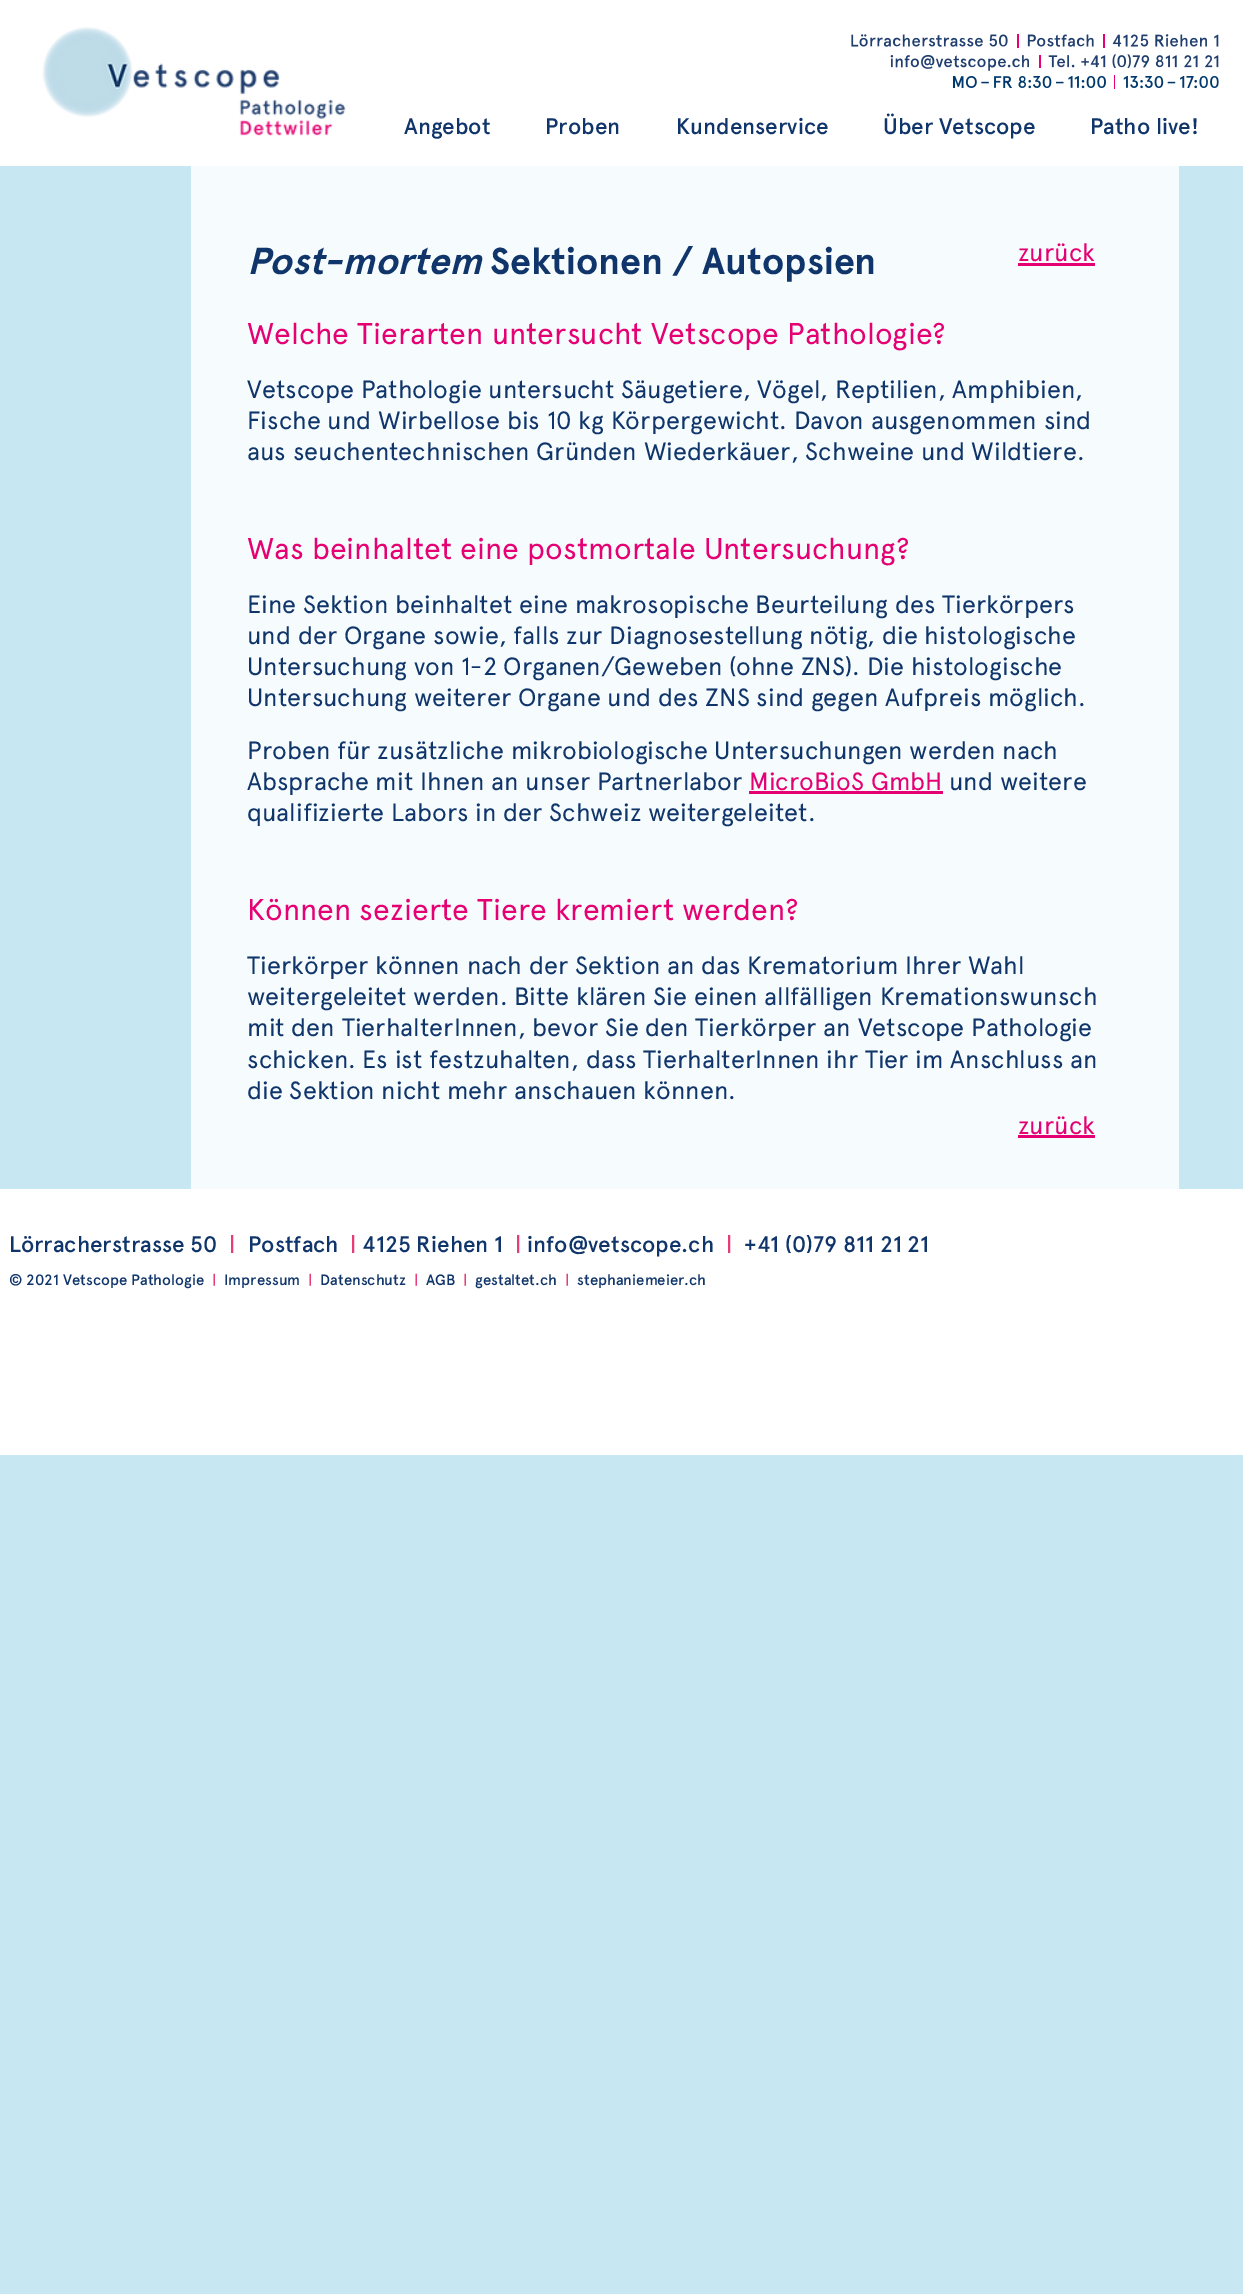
%!PS-Adobe-3.0
%%BoundingBox: 0 0 1243 2294
%%LanguageLevel: 3
%%Pages: 1
%%EndComments
%%BeginProlog
/setink { 3 { 255 div 3 1 roll } repeat setrgbcolor } def
/usefont { [ exch dup neg 0 0 3 -1 roll 0 0 ] selectfont } def
/drawtext { setink usefont moveto show } def
/fillbox { setink rectfill } def
/drawimage { 5 dict begin { /h /w /y /x /name } { exch def } forall
  gsave x y translate w h scale
  w h 8 [w 0 0 h 0 0] name (r) file false 3 colorimage grestore end } def
%%EndProlog
%%BeginSetup
<< /PageSize [1243 2294] >> setpagedevice
%%EndSetup
%%Page: 1 1
0 2294 translate 1 -1 scale
4 setmiterlimit
0 0 1243 2294 199 231 242 fillbox
0 0 1243 166 255 255 255 fillbox
(assets/img1.rgb) 851 34 368 55 drawimage
(assets/img2.rgb) 42 27 304 109 drawimage
(Angebot) 404 134 /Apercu-Medium 22.5 15 53 106 drawtext
(Proben) 545 134 /Apercu-Medium 22.5 15 53 106 drawtext
(Kundenservice) 676 134 /Apercu-Medium 22.5 15 53 106 drawtext
(Über Vetscope) 883 134 /Apercu-Medium 22.5 15 53 106 drawtext
(Patho live!) 1090 134 /Apercu-Medium 22.5 15 53 106 drawtext
191 166 988 1023 246 251 253 fillbox
(zurück) 1018 261 /Apercu-Regular 25 229 0 115 drawtext
1018 263 77 3 229 0 115 fillbox
(Post-mortem) 247 274 /Apercu-BoldItalic 37.5 15 53 106 drawtext
(Sektionen / Autopsien) 490 274 /Apercu-Bold 37.5 15 53 106 drawtext
(Welche Tierarten untersucht Vetscope Pathologie?) 247 344 /Apercu-Regular 30 229 0 115 drawtext
(Vetscope Pathologie untersucht Säugetiere, Vögel, Reptilien, Amphibien,) 247 398 /Apercu-Regular 25 15 53 106 drawtext
(Fische und Wirbellose bis 10 kg Körpergewicht. Davon ausgenommen sind) 247 429 /Apercu-Regular 25 15 53 106 drawtext
(aus seuchentechnischen Gründen Wiederkäuer, Schweine und Wildtiere.) 247 460 /Apercu-Regular 25 15 53 106 drawtext
(Was beinhaltet eine postmortale Untersuchung?) 247 559 /Apercu-Regular 30 229 0 115 drawtext
(Eine Sektion beinhaltet eine makrosopische Beurteilung des Tierkörpers) 247 613 /Apercu-Regular 25 15 53 106 drawtext
(und der Organe sowie, falls zur Diagnosestellung nötig, die histologische) 247 644 /Apercu-Regular 25 15 53 106 drawtext
(Untersuchung von 1-2 Organen/Geweben \(ohne ZNS\). Die histologische) 247 675 /Apercu-Regular 25 15 53 106 drawtext
(Untersuchung weiterer Organe und des ZNS sind gegen Aufpreis möglich.) 247 706 /Apercu-Regular 25 15 53 106 drawtext
(Proben für zusätzliche mikrobiologische Untersuchungen werden nach) 247 759 /Apercu-Regular 25 15 53 106 drawtext
(Absprache mit Ihnen an unser Partnerlabor) 247 790 /Apercu-Regular 25 15 53 106 drawtext
(MicroBioS GmbH) 749 790 /Apercu-Regular 25 229 0 115 drawtext
749 791 194 3 229 0 115 fillbox
(und weitere) 949 790 /Apercu-Regular 25 15 53 106 drawtext
(qualifizierte Labors in der Schweiz weitergeleitet.) 247 821 /Apercu-Regular 25 15 53 106 drawtext
(Können sezierte Tiere kremiert werden?) 247 920 /Apercu-Regular 30 229 0 115 drawtext
(Tierkörper können nach der Sektion an das Krematorium Ihrer Wahl) 247 974 /Apercu-Regular 25 15 53 106 drawtext
(weitergeleitet werden. Bitte klären Sie einen allfälligen Kremationswunsch) 247 1005 /Apercu-Regular 25 15 53 106 drawtext
(mit den TierhalterInnen, bevor Sie den Tierkörper an Vetscope Pathologie) 247 1036 /Apercu-Regular 25 15 53 106 drawtext
(schicken. Es ist festzuhalten, dass TierhalterInnen ihr Tier im Anschluss an) 247 1068 /Apercu-Regular 25 15 53 106 drawtext
(die Sektion nicht mehr anschauen können.) 247 1099 /Apercu-Regular 25 15 53 106 drawtext
(zurück) 1018 1134 /Apercu-Regular 25 229 0 115 drawtext
1018 1135 77 3 229 0 115 fillbox
0 1189 1243 266 255 255 255 fillbox
(Lörracherstrasse 50) 9 1252 /Apercu-Medium 22.5 15 53 106 drawtext
(|) 229 1252 /Apercu-Medium 22.5 232 60 121 drawtext
(Postfach) 248 1252 /Apercu-Medium 22.5 15 53 106 drawtext
(|) 350 1252 /Apercu-Medium 22.5 232 60 121 drawtext
(4125 Riehen 1) 362 1252 /Apercu-Medium 22.5 15 53 106 drawtext
(|) 515 1252 /Apercu-Medium 22.5 232 60 121 drawtext
(info@vetscope.ch) 527 1252 /Apercu-Medium 22.5 15 53 106 drawtext
(|) 726 1252 /Apercu-Medium 22.5 232 60 121 drawtext
(+41 \(0\)79 811 21 21) 744 1252 /Apercu-Medium 22.5 15 53 106 drawtext
(© 2021 Vetscope Pathologie) 9 1285 /Apercu-Medium 15 15 53 106 drawtext
(|) 212 1285 /Apercu-Medium 15 232 60 121 drawtext
(Impressum) 224 1285 /Apercu-Medium 15 15 53 106 drawtext
(|) 308 1285 /Apercu-Medium 15 232 60 121 drawtext
(Datenschutz) 320 1285 /Apercu-Medium 15 15 53 106 drawtext
(|) 414 1285 /Apercu-Medium 15 232 60 121 drawtext
(AGB) 426 1285 /Apercu-Medium 15 15 53 106 drawtext
(|) 463 1285 /Apercu-Medium 15 232 60 121 drawtext
(gestaltet.ch) 475 1285 /Apercu-Medium 15 15 53 106 drawtext
(|) 565 1285 /Apercu-Medium 15 232 60 121 drawtext
(stephaniemeier.ch) 577 1285 /Apercu-Medium 15 15 53 106 drawtext
showpage
%%EOF
